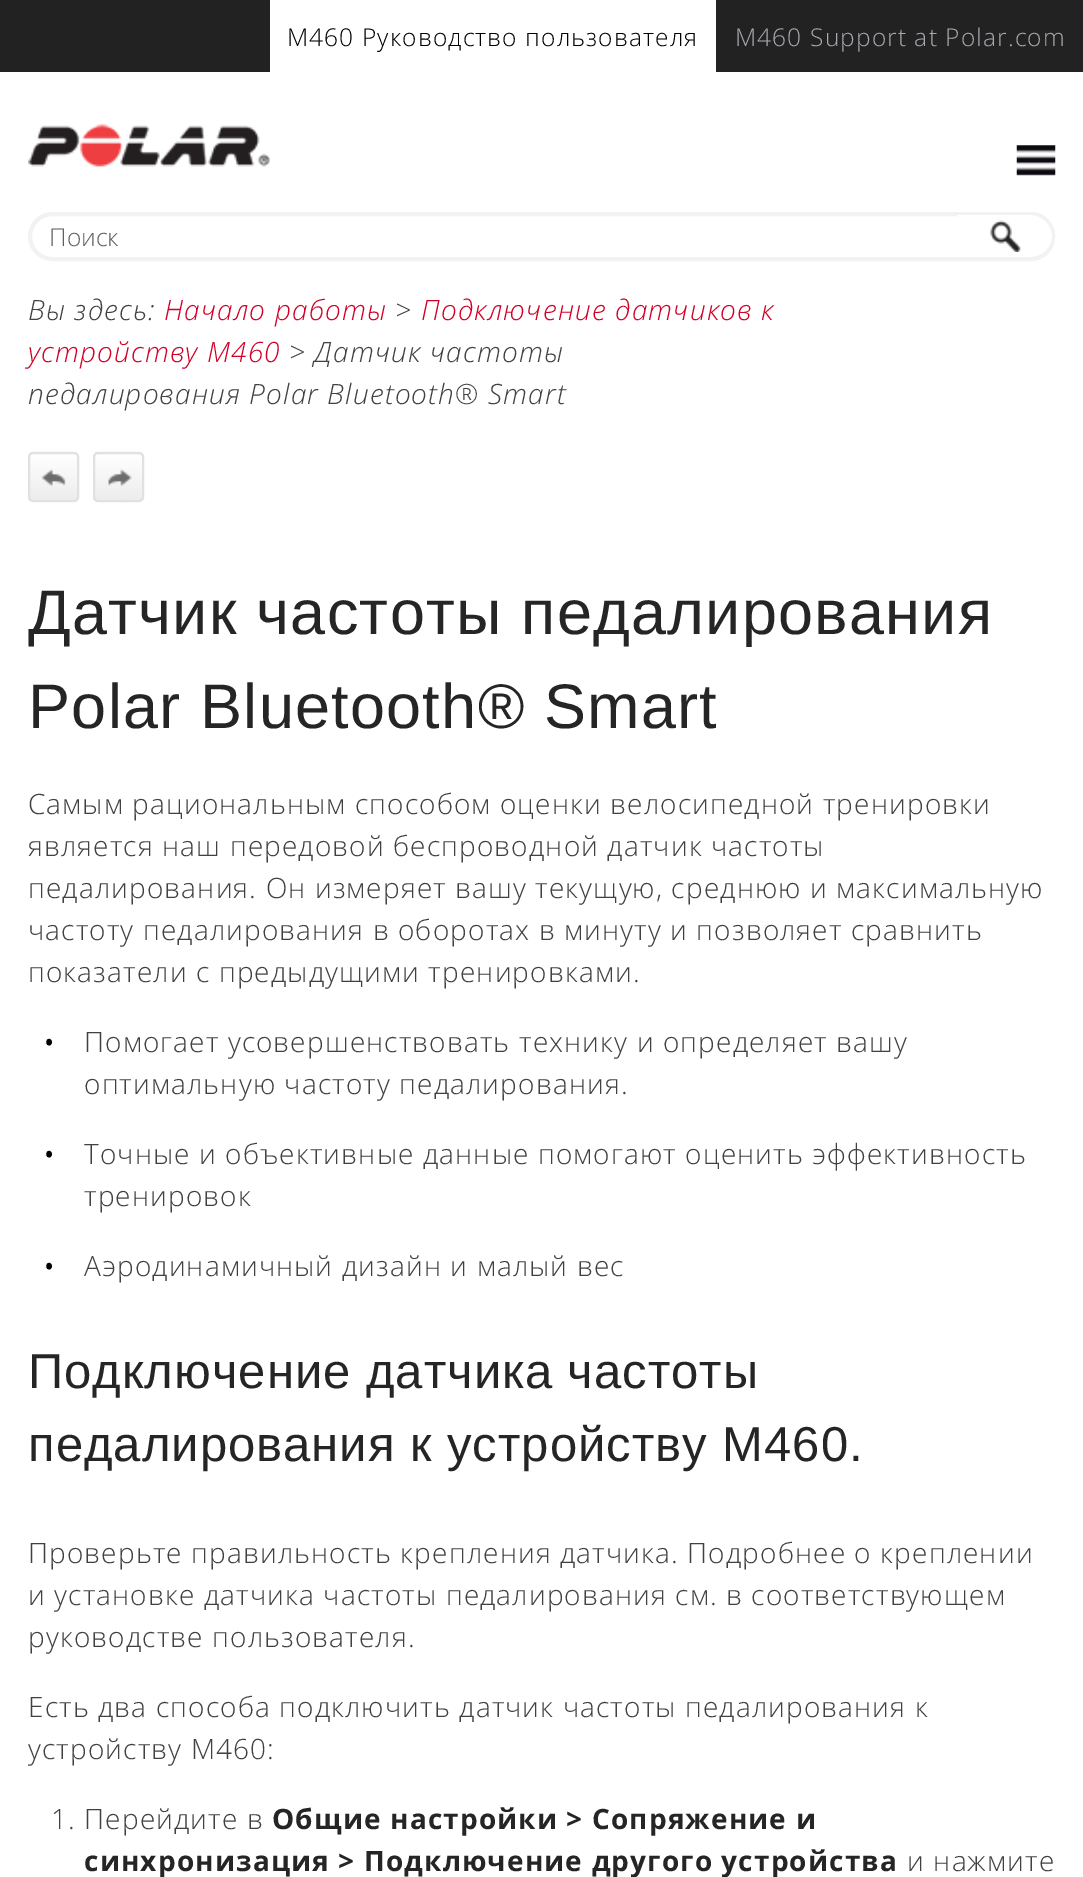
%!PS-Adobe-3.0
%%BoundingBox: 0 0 1083 1877
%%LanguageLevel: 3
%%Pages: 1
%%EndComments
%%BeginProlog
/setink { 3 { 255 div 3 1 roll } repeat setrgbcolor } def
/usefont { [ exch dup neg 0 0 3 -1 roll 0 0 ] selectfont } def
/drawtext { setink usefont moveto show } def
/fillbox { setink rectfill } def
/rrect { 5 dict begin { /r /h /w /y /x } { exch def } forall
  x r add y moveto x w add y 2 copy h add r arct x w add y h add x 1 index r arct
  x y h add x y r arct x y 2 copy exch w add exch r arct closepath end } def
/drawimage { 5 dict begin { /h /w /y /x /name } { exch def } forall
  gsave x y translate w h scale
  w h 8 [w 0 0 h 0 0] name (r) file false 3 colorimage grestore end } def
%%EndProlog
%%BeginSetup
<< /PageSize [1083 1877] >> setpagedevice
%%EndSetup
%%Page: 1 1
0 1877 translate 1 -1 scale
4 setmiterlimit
0 0 1083 1877 255 255 255 fillbox
0 0 1083 72 34 34 34 fillbox
270 0 446 72 255 255 255 fillbox
/OpenSans-Light 24.5 usefont
0 0 0 setink
287 46 moveto 1.12 0 (M460 Руководство пользователя) ashow
168 170 175 setink
735 46 moveto 1.12 0 (M460 Support at Polar.com) ashow
(assets/img1.rgb) 28 124 242 43 drawimage
(assets/img2.rgb) 1016 145 40 31 drawimage
242 242 242 setink
4 setlinewidth
30 214 1023 45 22.5 rrect stroke
(Поиск) 49 246 /OpenSans-Light 24.5 95 95 95 drawtext
255 255 255 setink
957 212 moveto 1030.5 212 lineto 1044 212 1055 223 1055 236.5 curveto 1055 250 1044 261 1030.5 261 curveto 957 261 lineto closepath fill
(assets/img3.rgb) 990 220 31 32 drawimage
242 242 242 setink
957 212 moveto 1031 212 lineto 1044 212 1055 223 1055 236 curveto 1055 250 1044 261 1031 261 curveto 957 261 lineto closepath 957 215 moveto 1031 215 lineto 1042 215 1052 225 1052 236 curveto 1052 248 1042 257 1031 257 curveto 957 257 lineto closepath eofill
/OpenSans-LightItalic 28 usefont
65 65 65 setink
28 320 moveto 1.12 0 (Вы здесь:) ashow
209 0 39 setink
164 320 moveto 1.12 0 (Начало работы) ashow
65 65 65 setink
395 320 moveto 1.12 0 (>) ashow
209 0 39 setink
421 320 moveto 1.12 0 (Подключение датчиков к) ashow
28 362 moveto 1.12 0 (устройству M460) ashow
65 65 65 setink
289 362 moveto 1.12 0 (> Датчик частоты) ashow
28 404 moveto 1.12 0 (педалирования Polar Bluetooth® Smart) ashow
(assets/img4.rgb) 28 451 51 50 drawimage
225 225 225 setink
2 setlinewidth
29 453 49 48 4 rrect stroke
(assets/img5.rgb) 93 451 51 50 drawimage
94 453 49 48 4 rrect stroke
/LiberationSans-Regular 63 usefont
37 37 37 setink
28 634 moveto 1.25 0 (Датчик частоты педалирования) ashow
28 728 moveto 1.25 0 (Polar Bluetooth® Smart) ashow
/OpenSans-Light 28 usefont
65 65 65 setink
28 814 moveto 1.12 0 (Самым рациональным способом оценки велосипедной тренировки) ashow
28 856 moveto 1.12 0 (является наш передовой беспроводной датчик частоты) ashow
28 898 moveto 1.12 0 (педалирования. Он измеряет вашу текущую, среднюю и максимальную) ashow
28 940 moveto 1.12 0 (частоту педалирования в оборотах в минуту и позволяет сравнить) ashow
28 982 moveto 1.12 0 (показатели с предыдущими тренировками.) ashow
/OpenSans-Light 38 usefont
0 0 0 setink
42 1056 moveto 1.12 0 (•) ashow
/OpenSans-Light 28 usefont
65 65 65 setink
84 1052 moveto 1.12 0 (Помогает усовершенствовать технику и определяет вашу) ashow
84 1094 moveto 1.12 0 (оптимальную частоту педалирования.) ashow
/OpenSans-Light 38 usefont
0 0 0 setink
42 1168 moveto 1.12 0 (•) ashow
/OpenSans-Light 28 usefont
65 65 65 setink
84 1164 moveto 1.12 0 (Точные и объективные данные помогают оценить эффективность) ashow
84 1206 moveto 1.12 0 (тренировок) ashow
/OpenSans-Light 38 usefont
0 0 0 setink
42 1280 moveto 1.12 0 (•) ashow
/OpenSans-Light 28 usefont
65 65 65 setink
84 1276 moveto 1.12 0 (Аэродинамичный дизайн и малый вес) ashow
/LiberationSans-Regular 49 usefont
37 37 37 setink
28 1388 moveto 1 0 (Подключение датчика частоты) ashow
28 1461 moveto 1 0 (педалирования к устройству M460.) ashow
/OpenSans-Light 28 usefont
65 65 65 setink
28 1563 moveto 1.12 0 (Проверьте правильность крепления датчика. Подробнее о креплении) ashow
28 1605 moveto 1.12 0 (и установке датчика частоты педалирования см. в соответствующем) ashow
28 1647 moveto 1.12 0 (руководстве пользователя.) ashow
28 1717 moveto 1.12 0 (Есть два способа подключить датчик частоты педалирования к) ashow
28 1759 moveto 1.12 0 (устройству M460:) ashow
51 1829 moveto 1.12 0 (1. Перейдите в) ashow
/OpenSans-Bold 28 usefont
37 37 37 setink
272 1829 moveto 1.12 0 (Общие настройки > Сопряжение и) ashow
84 1871 moveto 1.12 0 (синхронизация > Подключение другого устройства) ashow
/OpenSans-Light 28 usefont
65 65 65 setink
907 1871 moveto 1.12 0 (и нажмите) ashow
showpage
%%EOF
